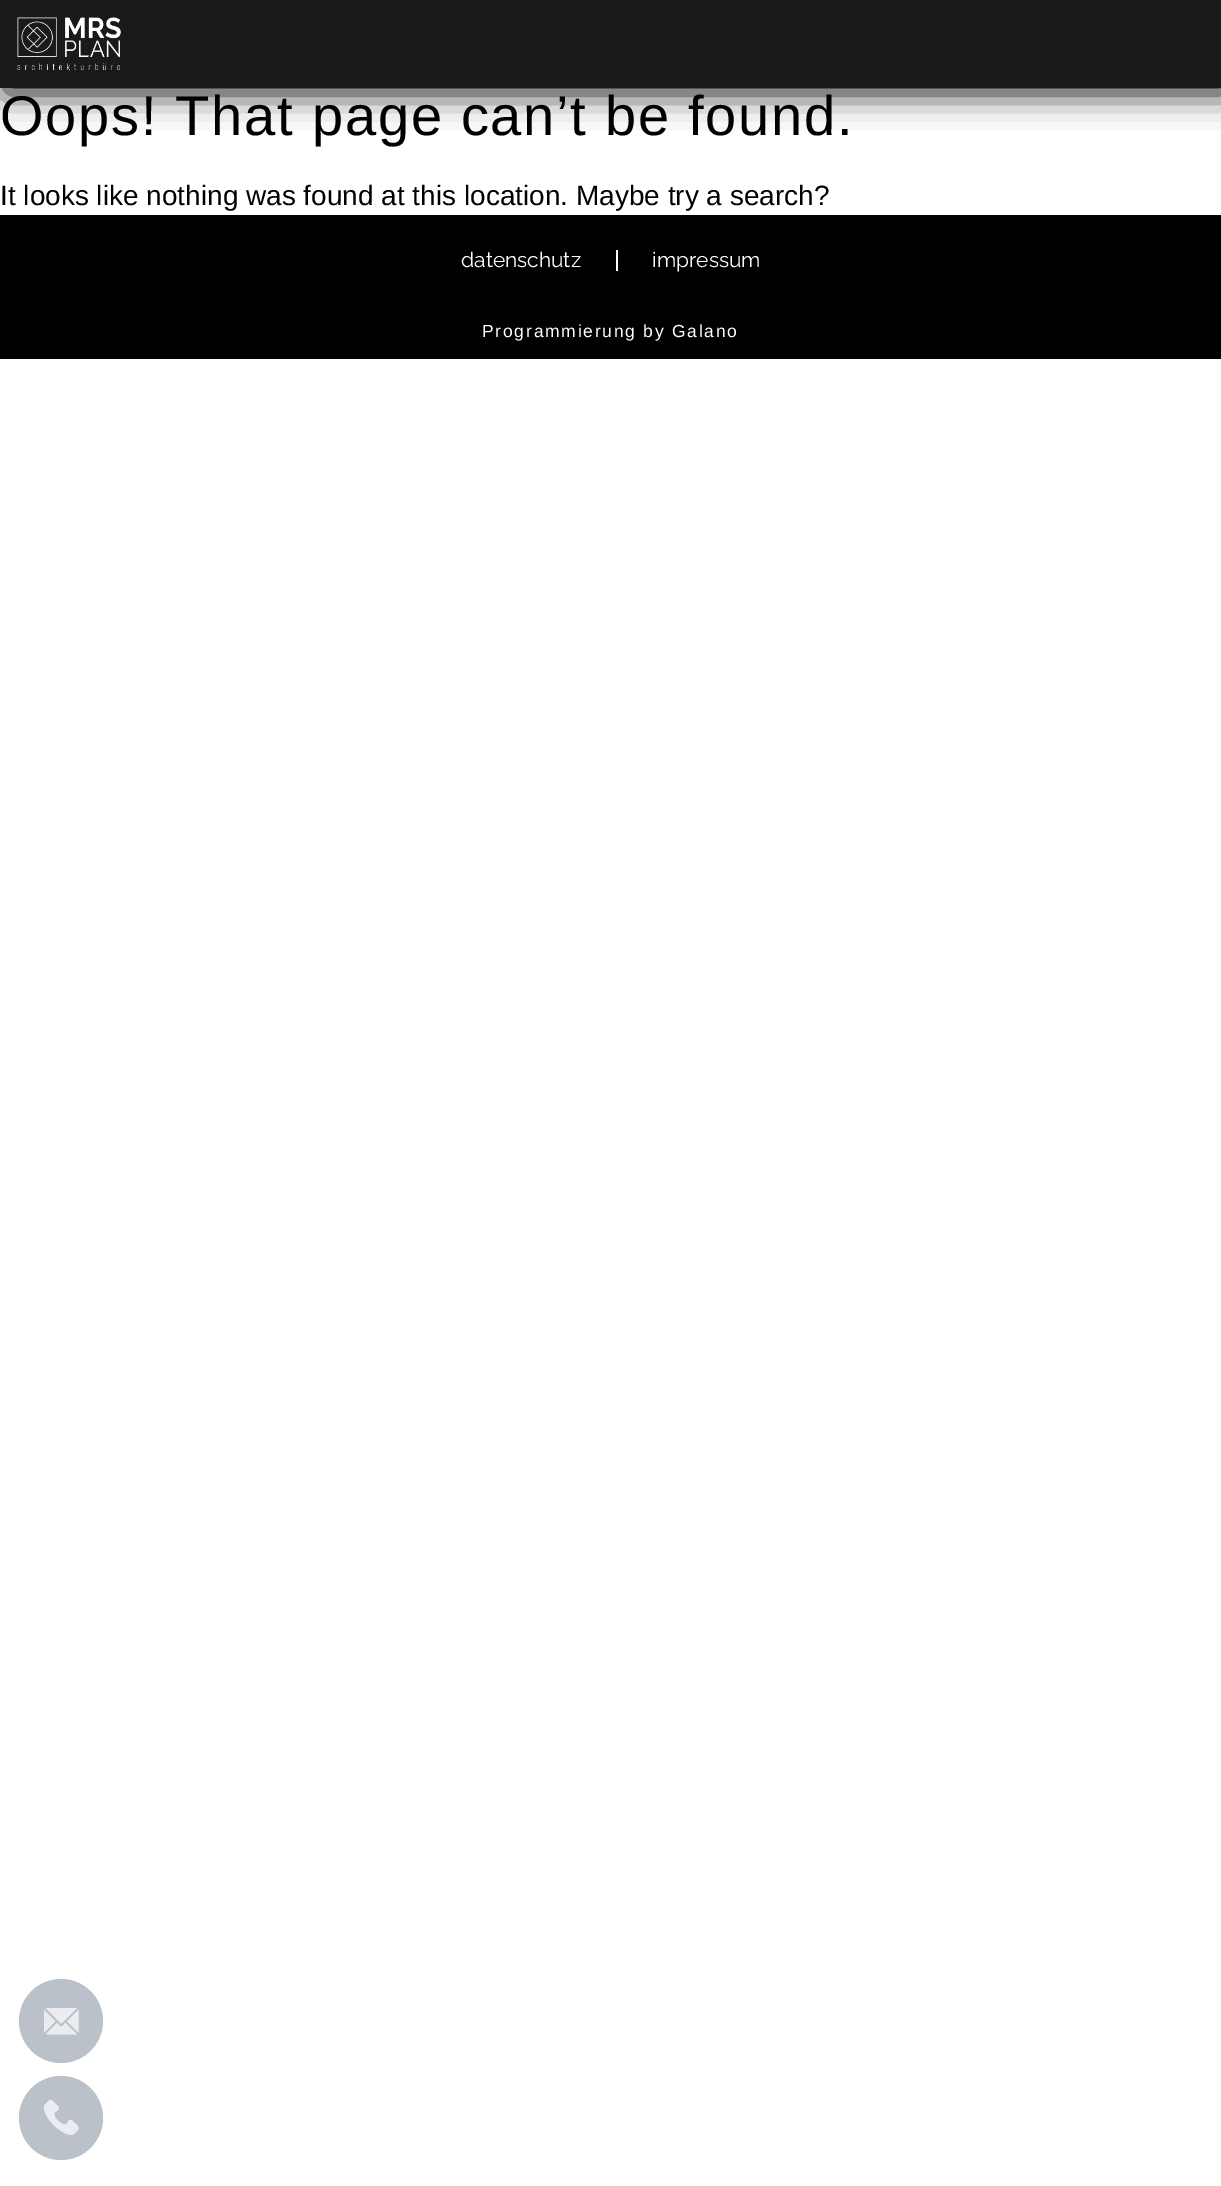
%!PS-Adobe-3.0
%%BoundingBox: 0 0 1221 2186
%%LanguageLevel: 3
%%Pages: 1
%%EndComments
%%BeginProlog
/setink { 3 { 255 div 3 1 roll } repeat setrgbcolor } def
/usefont { [ exch dup neg 0 0 3 -1 roll 0 0 ] selectfont } def
/drawtext { setink usefont moveto show } def
/fillbox { setink rectfill } def
/setalpha { dup .setfillconstantalpha .setstrokeconstantalpha } def
/disc { newpath 0 360 arc closepath } def
/rrect { 5 dict begin { /r /h /w /y /x } { exch def } forall
  x r add y moveto x w add y 2 copy h add r arct x w add y h add x 1 index r arct
  x y h add x y r arct x y 2 copy exch w add exch r arct closepath end } def
/softshadow { 12 dict begin { /a /b /q /h /w /y /x } { exch def } forall gsave /was 0 def
  9 -2 -9 { dup b mul 4 div /e exch def 1 sub .425 mul 2.718 exch exp 1 add a .99 .min exch div /now exch def
    1 1 now sub 1 was sub div sub setalpha /was now def
    w h .min e 2 mul add 0 gt { x e sub y e sub w e 2 mul add h e 2 mul add
      q e add b .6 mul add w h .min 2 div e add .min 0 .max rrect fill } if } for grestore end } def
/drawimage { 5 dict begin { /h /w /y /x /name } { exch def } forall
  gsave x y translate w h scale
  w h 8 [w 0 0 h 0 0] name (r) file false 3 colorimage grestore end } def
%%EndProlog
%%BeginSetup
<< /PageSize [1221 2186] /PageUsesTransparency true >> setpagedevice
%%EndSetup
%%Page: 1 1
0 .pushpdf14devicefilter
0 2186 translate 1 -1 scale
4 setmiterlimit
0 0 1221 2186 255 255 255 fillbox
gsave
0 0 moveto 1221 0 lineto 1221 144 lineto 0 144 lineto closepath 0 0 moveto 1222 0 lineto 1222 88 lineto 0 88 lineto closepath eoclip newpath
10 10 10 setink
5 5 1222 88 0 16.5 1 softshadow
grestore
0.9 setalpha
0 0 1221 88 0 0 0 fillbox
1 setalpha
(assets/img1.rgb) 17 17 104 53 drawimage
/LiberationSans-Regular 56 usefont
0 135 moveto 1.75 0 (Oops! That page can’t be found.) ashow
(It looks like nothing was found at this location. Maybe try a search?) 0 205 /LiberationSans-Regular 28 0 0 0 drawtext
187 193 201 setink
61 2021 42 disc fill
(assets/img2.rgb) 44 2008 35 27 drawimage
61 2118 42 disc fill
(assets/img3.rgb) 44 2100 35 35 drawimage
0 215 1221 144 0 0 0 fillbox
616 250 2 21 255 255 255 fillbox
(datenschutz) 461 267 /Raleway-Regular 21 255 255 255 drawtext
(impressum) 652 267 /Raleway-Regular 21 255 255 255 drawtext
/LiberationSans-Regular 17.5 usefont
482 337 moveto 1.75 0 (Programmierung by Galano) ashow
.poppdf14devicefilter showpage
%%EOF
